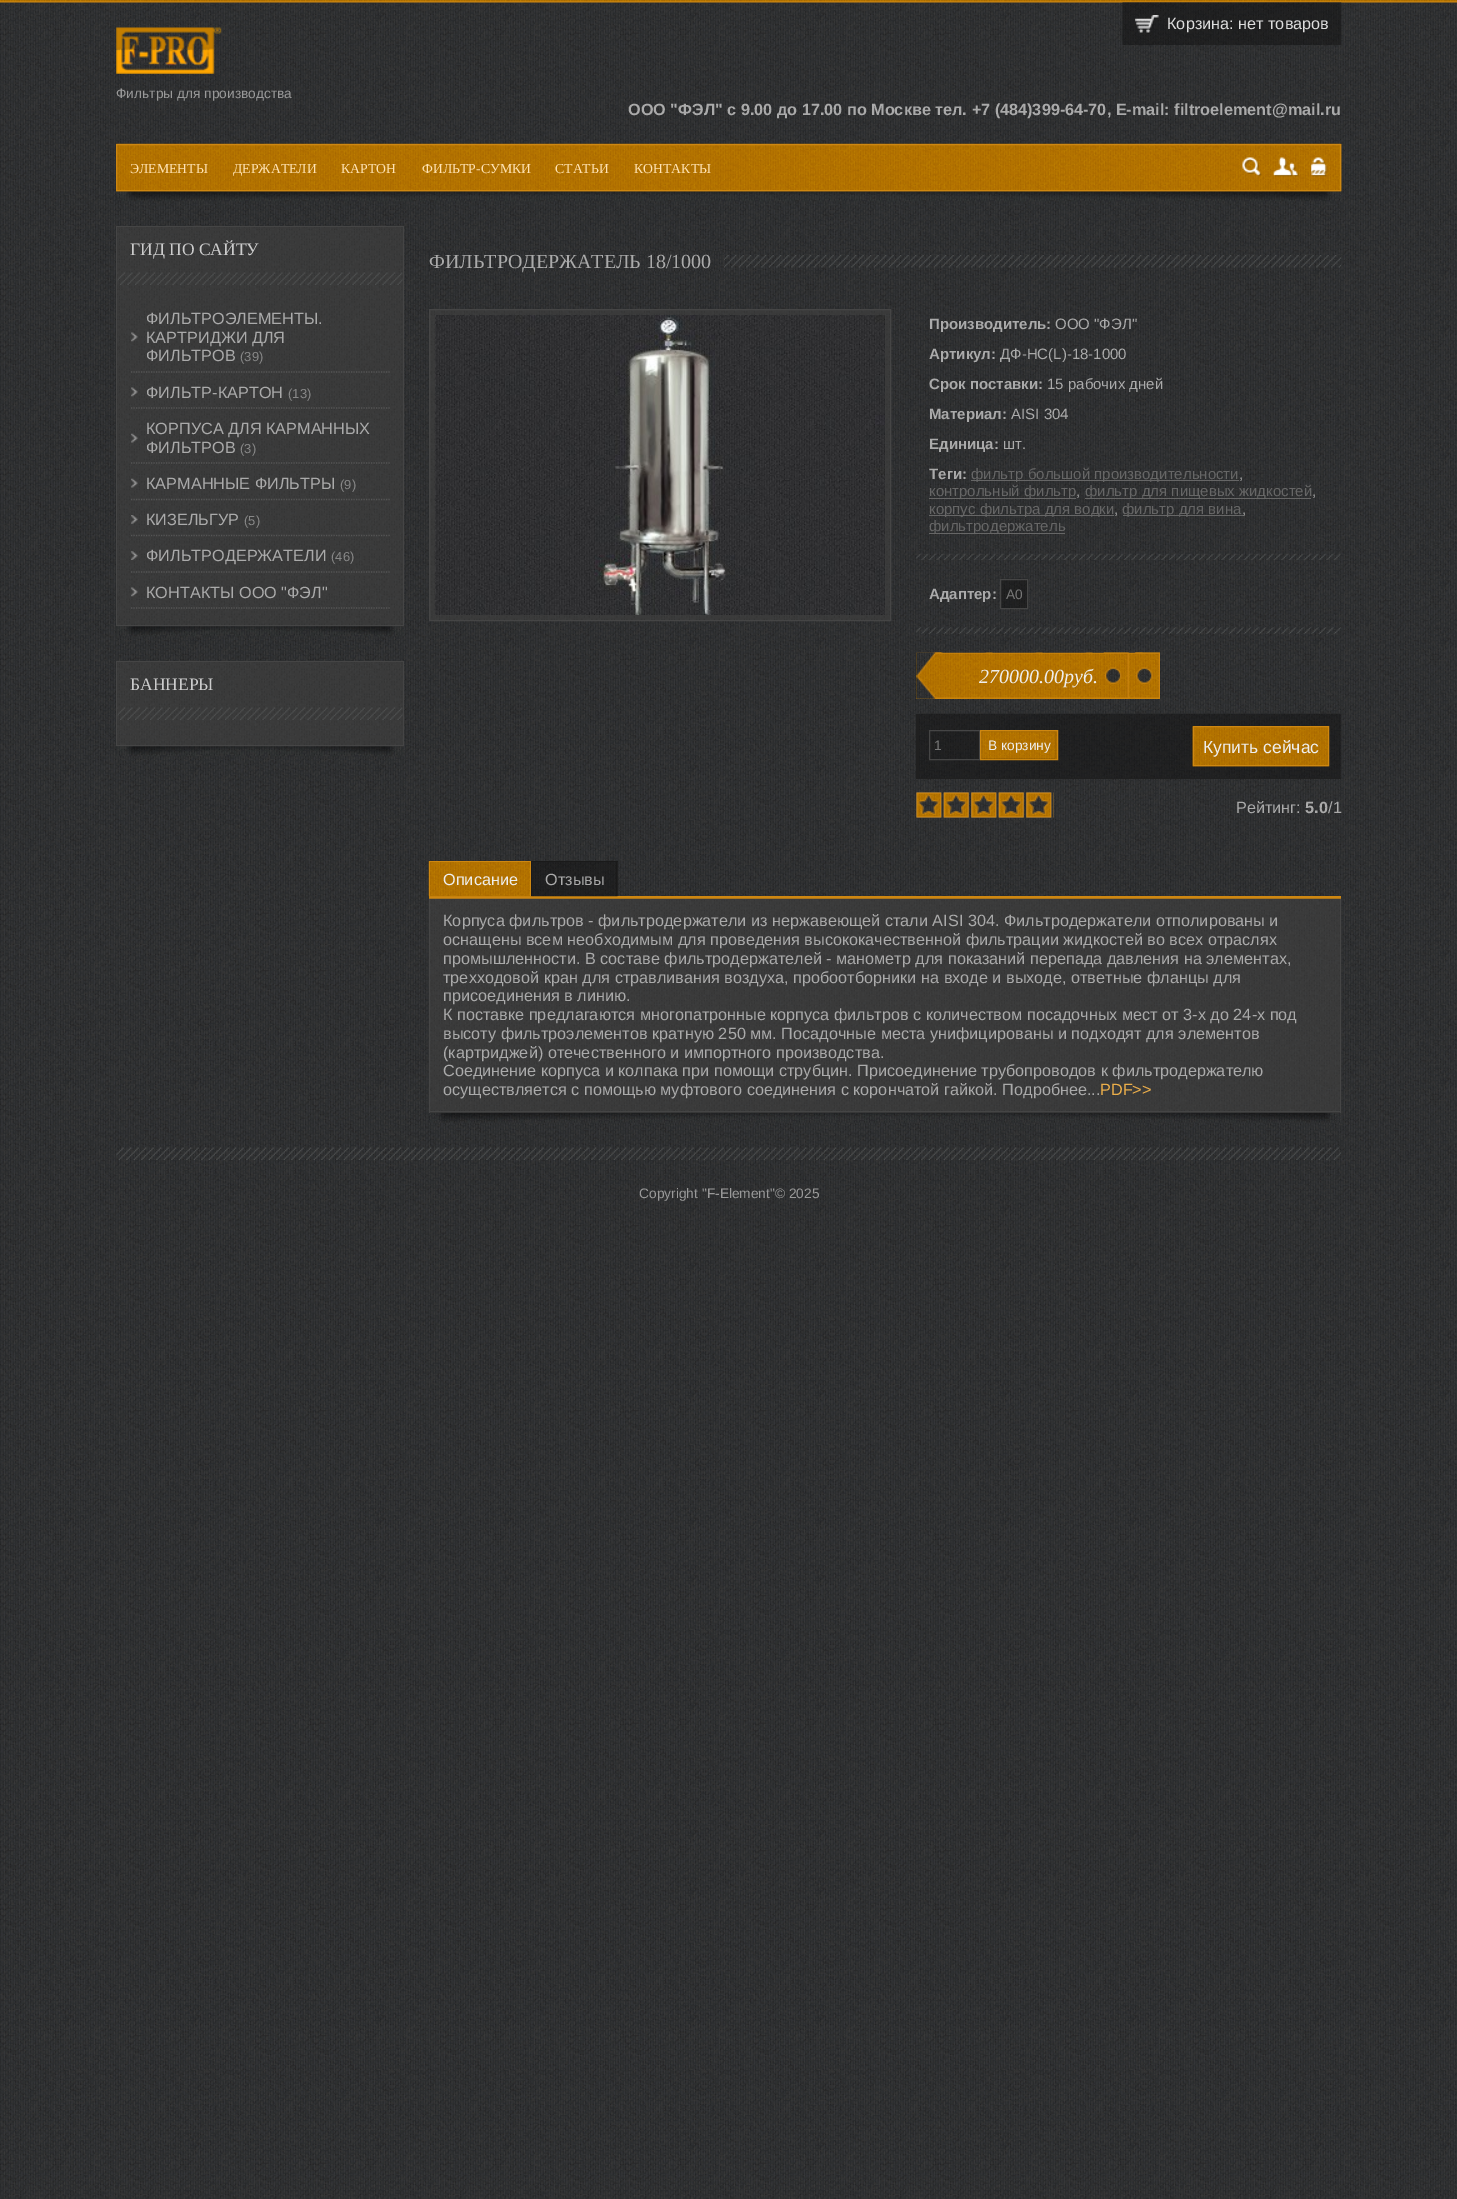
%!PS-Adobe-3.0
%%BoundingBox: 0 0 1457 2199
%%LanguageLevel: 3
%%Pages: 1
%%EndComments
%%BeginProlog
/setink { 3 { 255 div 3 1 roll } repeat setrgbcolor } def
/usefont { [ exch dup neg 0 0 3 -1 roll 0 0 ] selectfont } def
/drawtext { setink usefont moveto show } def
/fillbox { setink rectfill } def
/setalpha { dup .setfillconstantalpha .setstrokeconstantalpha } def
/drawimage { 5 dict begin { /h /w /y /x /name } { exch def } forall
  gsave x y translate w h scale
  w h 8 [w 0 0 h 0 0] name (r) file false 3 colorimage grestore end } def
%%EndProlog
%%BeginSetup
<< /PageSize [1457 2199] /PageUsesTransparency true >> setpagedevice
%%EndSetup
%%Page: 1 1
0 .pushpdf14devicefilter
0 2199 translate 1 -1 scale
4 setmiterlimit
0 0 1457 2199 255 255 255 fillbox
(assets/img1.rgb) 0 2 1457 2197 drawimage
(assets/img2.rgb) 0 0 1457 3 drawimage
(assets/img3.rgb) 1122 2 220 43 drawimage
(assets/img4.rgb) 1135 15 24 19 drawimage
(Корзина: нет товаров) 1167 29 /LiberationSans-Regular 16.25 221 221 221 drawtext
(assets/img5.rgb) 116 27 106 47 drawimage
(Фильтры для производства) 116 98 /LiberationSans-Regular 13.75 153 153 153 drawtext
(ООО "ФЭЛ" с 9.00 до 17.00 по Москве тел. +7 \(484\)399-64-70, E-mail: filtroelement@mail.ru) 628 115 /LiberationSans-Bold 16.25 170 170 170 drawtext
(assets/img6.rgb) 116 191 1225 11 drawimage
(assets/img7.rgb) 116 143 1226 49 drawimage
206 135 17 setink
116.5 144.5 1224 46 rectstroke
(ЭЛЕМЕНТЫ) 130 173 /LiberationSerif-Regular 13.75 255 227 180 drawtext
(ДЕРЖАТЕЛИ) 233 173 /LiberationSerif-Regular 13.75 255 227 180 drawtext
(КАРТОН) 341 173 /LiberationSerif-Regular 13.75 255 227 180 drawtext
(ФИЛЬТР-СУМКИ) 422 173 /LiberationSerif-Regular 13.75 255 227 180 drawtext
(СТАТЬИ) 555 173 /LiberationSerif-Regular 13.75 255 227 180 drawtext
(КОНТАКТЫ) 634 173 /LiberationSerif-Regular 13.75 255 227 180 drawtext
(assets/img8.rgb) 1242 157 20 20 drawimage
(assets/img9.rgb) 1273 157 26 20 drawimage
(assets/img10.rgb) 1311 157 17 20 drawimage
(assets/img11.rgb) 116 626 288 11 drawimage
(assets/img12.rgb) 117 227 286 58 drawimage
116 226 288 1 69 69 69 fillbox
403 226 1 59 69 69 69 fillbox
116 226 1 59 69 69 69 fillbox
(assets/img13.rgb) 117 272 286 13 drawimage
(ГИД ПО САЙТУ) 130 255 /LiberationSerif-Regular 17.5 204 204 204 drawtext
(assets/img14.rgb) 116 285 288 342 drawimage
403 285 1 341 69 69 69 fillbox
116 625 288 1 69 69 69 fillbox
116 285 1 341 69 69 69 fillbox
(assets/img15.rgb) 131 332 7 10 drawimage
85 85 85 setink
1.2 setlinewidth
[1.25 1.25] 0 setdash
131 372 moveto 391 372 lineto stroke
(ФИЛЬТРОЭЛЕМЕНТЫ.) 146 324 /LiberationSans-Regular 16.25 170 170 170 drawtext
(КАРТРИДЖИ ДЛЯ) 146 343 /LiberationSans-Regular 16.25 170 170 170 drawtext
(ФИЛЬТРОВ) 146 361 /LiberationSans-Regular 16.25 170 170 170 drawtext
(\(39\)) 240 361 /LiberationSans-Regular 13 136 136 136 drawtext
(assets/img16.rgb) 131 387 7 10 drawimage
85 85 85 setink
131 408 moveto 391 408 lineto stroke
(ФИЛЬТР-КАРТОН) 146 398 /LiberationSans-Regular 16.25 170 170 170 drawtext
(\(13\)) 288 398 /LiberationSans-Regular 13 136 136 136 drawtext
(assets/img17.rgb) 131 433 7 10 drawimage
85 85 85 setink
131 463 moveto 391 463 lineto stroke
(КОРПУСА ДЛЯ КАРМАННЫХ) 146 434 /LiberationSans-Regular 16.25 170 170 170 drawtext
(ФИЛЬТРОВ) 146 453 /LiberationSans-Regular 16.25 170 170 170 drawtext
(\(3\)) 240 453 /LiberationSans-Regular 13 136 136 136 drawtext
(assets/img18.rgb) 131 478 7 10 drawimage
85 85 85 setink
131 499.5 moveto 391 499.5 lineto stroke
(КАРМАННЫЕ ФИЛЬТРЫ) 146 489 /LiberationSans-Regular 16.25 170 170 170 drawtext
(\(9\)) 340 489 /LiberationSans-Regular 13 136 136 136 drawtext
(assets/img19.rgb) 131 515 7 9 drawimage
85 85 85 setink
131 535.5 moveto 391 535.5 lineto stroke
(КИЗЕЛЬГУР) 146 525 /LiberationSans-Regular 16.25 170 170 170 drawtext
(\(5\)) 244 525 /LiberationSans-Regular 13 136 136 136 drawtext
(assets/img20.rgb) 131 551 7 9 drawimage
85 85 85 setink
131 572 moveto 391 572 lineto stroke
(ФИЛЬТРОДЕРЖАТЕЛИ) 146 561 /LiberationSans-Regular 16.25 170 170 170 drawtext
(\(46\)) 331 561 /LiberationSans-Regular 13 136 136 136 drawtext
(assets/img21.rgb) 131 587 7 10 drawimage
85 85 85 setink
131 608 moveto 391 608 lineto stroke
(КОНТАКТЫ ООО "ФЭЛ") 146 598 /LiberationSans-Regular 16.25 170 170 170 drawtext
(assets/img22.rgb) 116 746 288 11 drawimage
(assets/img12.rgb) 117 662 286 58 drawimage
116 661 288 1 69 69 69 fillbox
403 661 1 59 69 69 69 fillbox
116 661 1 59 69 69 69 fillbox
(assets/img23.rgb) 117 707 286 13 drawimage
(БАННЕРЫ) 130 690 /LiberationSerif-Regular 17.5 204 204 204 drawtext
(assets/img24.rgb) 116 720 288 27 drawimage
403 720 1 26 69 69 69 fillbox
116 745 288 1 69 69 69 fillbox
116 720 1 26 69 69 69 fillbox
(assets/img25.rgb) 428 255 914 13 drawimage
429 251 295 20 45 45 45 fillbox
(assets/img26.rgb) 428 251 296 21 drawimage
(ФИЛЬТРОДЕРЖАТЕЛЬ 18/1000) 429 268 /LiberationSerif-Regular 20 170 170 170 drawtext
(assets/img27.rgb) 430 310 460 310 drawimage
69 69 69 setink
1 setlinewidth
[] 0 setdash
429.5 309.5 461 311 rectstroke
(Производитель:) 929 329 /LiberationSans-Bold 15 170 170 170 drawtext
(ООО "ФЭЛ") 1055 329 /LiberationSans-Regular 15 170 170 170 drawtext
(Артикул:) 929 359 /LiberationSans-Bold 15 170 170 170 drawtext
(ДФ-НС\(L\)-18-1000) 1000 359 /LiberationSans-Regular 15 170 170 170 drawtext
(Срок поставки:) 929 389 /LiberationSans-Bold 15 170 170 170 drawtext
(15 рабочих дней) 1047 389 /LiberationSans-Regular 15 170 170 170 drawtext
(Материал:) 929 419 /LiberationSans-Bold 15 170 170 170 drawtext
(AISI 304) 1011 419 /LiberationSans-Regular 15 170 170 170 drawtext
(Единица:) 929 449 /LiberationSans-Bold 15 170 170 170 drawtext
(шт.) 1003 449 /LiberationSans-Regular 15 170 170 170 drawtext
(Теги:) 929 479 /LiberationSans-Bold 15 170 170 170 drawtext
971 480 268 1 102 102 102 fillbox
(фильтр большой производительности) 971 479 /LiberationSans-Regular 15 102 102 102 drawtext
(,) 1239 479 /LiberationSans-Regular 15 170 170 170 drawtext
929 498 147 1 102 102 102 fillbox
(контрольный фильтр) 929 496 /LiberationSans-Regular 15 102 102 102 drawtext
(,) 1076 496 /LiberationSans-Regular 15 170 170 170 drawtext
1085 498 226 1 102 102 102 fillbox
(фильтр для пищевых жидкостей) 1085 496 /LiberationSans-Regular 15 102 102 102 drawtext
(,) 1312 496 /LiberationSans-Regular 15 170 170 170 drawtext
929 515 185 1 102 102 102 fillbox
(корпус фильтра для водки) 929 514 /LiberationSans-Regular 15 102 102 102 drawtext
(,) 1114 514 /LiberationSans-Regular 15 170 170 170 drawtext
1123 515 120 1 102 102 102 fillbox
(фильтр для вина) 1122 514 /LiberationSans-Regular 15 102 102 102 drawtext
(,) 1242 514 /LiberationSans-Regular 15 170 170 170 drawtext
929 533 136 1 102 102 102 fillbox
(фильтродержатель) 929 531 /LiberationSans-Regular 15 102 102 102 drawtext
(assets/img28.rgb) 916 553 425 7 drawimage
(Адаптер:) 929 599 /LiberationSans-Bold 15 170 170 170 drawtext
(assets/img29.rgb) 1001 578 26 30 drawimage
69 69 69 setink
1000.5 579.5 27 29 rectstroke
(A0) 1006 599 /LiberationSans-Regular 13.75 119 119 119 drawtext
(assets/img30.rgb) 916 627 425 7 drawimage
916 653 244 46 188 125 0 fillbox
(assets/img31.rgb) 916 652 244 47 drawimage
(assets/img32.rgb) 916 652 26 47 drawimage
(assets/img33.rgb) 1135 652 25 47 drawimage
(assets/img34.rgb) 1103 652 26 47 drawimage
(270000.00руб.) 979 683 /LiberationSerif-Italic 20 238 238 238 drawtext
916 714 425 65 32 32 32 fillbox
(assets/img35.rgb) 919 713 423 65 drawimage
976 731 3 28 32 32 32 fillbox
(assets/img36.rgb) 930 731 46 28 drawimage
69 69 69 setink
929.5 730.5 50 29 rectstroke
(1) 934 750 /LiberationSans-Regular 13.75 119 119 119 drawtext
(assets/img37.rgb) 981 731 76 28 drawimage
0.1 setalpha
0 0 0 setink
981.5 731.5 74 27 rectstroke
1 setalpha
206 135 17 setink
980.5 730.5 77 29 rectstroke
(В корзину) 988 750 /LiberationSans-Regular 13.75 238 238 238 drawtext
(assets/img38.rgb) 1192 726 137 41 drawimage
206 135 17 setink
1193.5 726.5 135 39 rectstroke
(Купить сейчас) 1203 753 /LiberationSans-Regular 17.5 238 238 238 drawtext
(assets/img39.rgb) 916 792 138 26 drawimage
(assets/img40.rgb) 916 792 138 26 drawimage
(Рейтинг:) 1236 813 /LiberationSans-Regular 16.25 170 170 170 drawtext
(5.0) 1305 813 /LiberationSans-Bold 16.25 170 170 170 drawtext
(/1) 1328 813 /LiberationSans-Regular 16.25 170 170 170 drawtext
429 896 912 3 206 135 17 fillbox
(assets/img41.rgb) 428 861 104 36 drawimage
429 861 102 1 206 135 17 fillbox
530 861 1 35 206 135 17 fillbox
429 861 1 35 206 135 17 fillbox
(Описание) 443 885 /LiberationSans-Regular 16.25 238 238 238 drawtext
617 862 1 34 32 32 32 fillbox
(assets/img42.rgb) 531 862 87 35 drawimage
531 861 87 1 26 26 26 fillbox
616 861 1 35 26 26 26 fillbox
531 861 1 35 26 26 26 fillbox
(Отзывы) 545 885 /LiberationSans-Regular 16.25 170 170 170 drawtext
(assets/img43.rgb) 429 1113 912 10 drawimage
430 1112 910 1 51 51 51 fillbox
(assets/img44.rgb) 428 898 914 215 drawimage
1340 899 1 214 69 69 69 fillbox
429 1111 912 1 69 69 69 fillbox
429 899 1 214 69 69 69 fillbox
(Корпуса фильтров - фильтродержатели из нержавеющей стали AISI 304. Фильтродержатели отполированы и) 443 926 /LiberationSans-Regular 16.25 170 170 170 drawtext
(оснащены всем необходимым для проведения высококачественной фильтрации жидкостей во всех отраслях) 443 945 /LiberationSans-Regular 16.25 170 170 170 drawtext
(промышленности. В составе фильтродержателей - манометр для показаний перепада давления на элементах,) 443 964 /LiberationSans-Regular 16.25 170 170 170 drawtext
(трехходовой кран для стравливания воздуха, пробоотборники на входе и выходе, ответные фланцы для) 443 983 /LiberationSans-Regular 16.25 170 170 170 drawtext
(присоединения в линию.) 443 1001 /LiberationSans-Regular 16.25 170 170 170 drawtext
(К поставке предлагаются многопатронные корпуса фильтров с количеством посадочных мест от 3-х до 24-х под) 443 1020 /LiberationSans-Regular 16.25 170 170 170 drawtext
(высоту фильтроэлементов кратную 250 мм. Посадочные места унифицированы и подходят для элементов) 443 1039 /LiberationSans-Regular 16.25 170 170 170 drawtext
(\(картриджей\) отечественного и импортного производства.) 443 1058 /LiberationSans-Regular 16.25 170 170 170 drawtext
(Соединение корпуса и колпака при помощи струбцин. Присоединение трубопроводов к фильтродержателю) 443 1076 /LiberationSans-Regular 16.25 170 170 170 drawtext
(осуществляется с помощью муфтового соединения с корончатой гайкой. Подробнее...) 443 1095 /LiberationSans-Regular 16.25 170 170 170 drawtext
(PDF>>) 1100 1095 /LiberationSans-Regular 16.25 235 174 74 drawtext
(assets/img45.rgb) 116 1147 1226 13 drawimage
(Copyright "F-Element"© 2025) 639 1198 /LiberationSans-Regular 13.75 153 153 153 drawtext
.poppdf14devicefilter showpage
%%EOF
